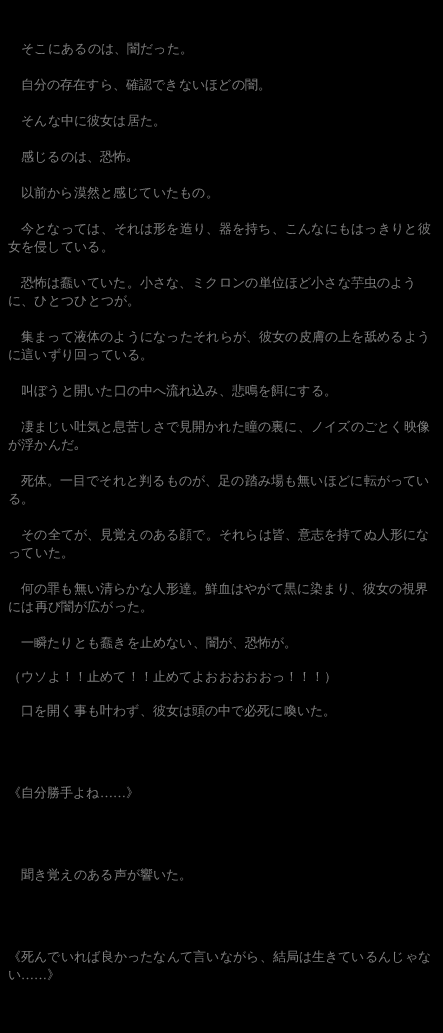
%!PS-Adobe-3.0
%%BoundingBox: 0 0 443 1033
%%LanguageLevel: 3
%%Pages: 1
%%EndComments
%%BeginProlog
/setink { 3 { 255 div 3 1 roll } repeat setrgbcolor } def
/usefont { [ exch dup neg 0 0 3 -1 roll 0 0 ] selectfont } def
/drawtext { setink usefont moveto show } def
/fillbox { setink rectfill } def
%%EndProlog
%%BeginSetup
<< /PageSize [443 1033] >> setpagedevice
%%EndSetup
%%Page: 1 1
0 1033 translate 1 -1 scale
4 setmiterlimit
0 0 443 1033 0 0 0 fillbox
(そこにあるのは、闇だった。) 21 53 /WenQuanYiZenHei-Medium 13 128 128 128 drawtext
(自分の存在すら、確認できないほどの闇。) 21 89 /WenQuanYiZenHei-Medium 13 128 128 128 drawtext
(そんな中に彼女は居た。) 21 125 /WenQuanYiZenHei-Medium 13 128 128 128 drawtext
(感じるのは、恐怖) 21 161 /WenQuanYiZenHei-Medium 13 128 128 128 drawtext
(｡) 126 161 /IPAGothic-Regular 13 128 128 128 drawtext
(以前から漠然と感じていたもの。) 21 197 /WenQuanYiZenHei-Medium 13 128 128 128 drawtext
(今となっては、それは形を造り、器を持ち、こんなにもはっきりと彼) 21 233 /WenQuanYiZenHei-Medium 13 128 128 128 drawtext
(女を侵している。) 8 251 /WenQuanYiZenHei-Medium 13 128 128 128 drawtext
(恐怖は蠢いていた。小さな、ミクロンの単位ほど小さな芋虫のよう) 21 287 /WenQuanYiZenHei-Medium 13 128 128 128 drawtext
(に、ひとつひとつが。) 8 305 /WenQuanYiZenHei-Medium 13 128 128 128 drawtext
(集まって液体のようになったそれらが、彼女の皮膚の上を舐めるよう) 21 341 /WenQuanYiZenHei-Medium 13 128 128 128 drawtext
(に這いずり回っている。) 8 359 /WenQuanYiZenHei-Medium 13 128 128 128 drawtext
(叫ぼうと開いた口の中へ流れ込み、悲鳴を餌にする。) 21 395 /WenQuanYiZenHei-Medium 13 128 128 128 drawtext
(凄まじい吐気と息苦しさで見開かれた瞳の裏に、ノイズのごとく映像) 21 431 /WenQuanYiZenHei-Medium 13 128 128 128 drawtext
(が浮かんだ) 8 449 /WenQuanYiZenHei-Medium 13 128 128 128 drawtext
(｡) 74 449 /IPAGothic-Regular 13 128 128 128 drawtext
(死体。一目でそれと判るものが、足の踏み場も無いほどに転がってい) 21 485 /WenQuanYiZenHei-Medium 13 128 128 128 drawtext
(る。) 8 503 /WenQuanYiZenHei-Medium 13 128 128 128 drawtext
(その全てが、見覚えのある顔で。それらは皆、意志を持てぬ人形にな) 21 539 /WenQuanYiZenHei-Medium 13 128 128 128 drawtext
(っていた。) 8 557 /WenQuanYiZenHei-Medium 13 128 128 128 drawtext
(何の罪も無い清らかな人形達。鮮血はやがて黒に染まり、彼女の視界) 21 593 /WenQuanYiZenHei-Medium 13 128 128 128 drawtext
(には再び闇が広がった。) 8 611 /WenQuanYiZenHei-Medium 13 128 128 128 drawtext
(一瞬たりとも蠢きを止めない、闇が、恐怖が。) 21 647 /WenQuanYiZenHei-Medium 13 128 128 128 drawtext
(（ウソよ！！止めて！！止めてよおおおおおっ！！！）) 8 681 /WenQuanYiZenHei-Medium 13 128 128 128 drawtext
(口を開く事も叶わず、彼女は頭の中で必死に喚いた。) 21 715 /WenQuanYiZenHei-Medium 13 128 128 128 drawtext
(《自分勝手よね) 8 797 /WenQuanYiZenHei-Medium 13 128 128 128 drawtext
(……) 100 797 /LiberationSerif-Regular 13 128 128 128 drawtext
(》) 126 797 /WenQuanYiZenHei-Medium 13 128 128 128 drawtext
(聞き覚えのある声が響いた。) 21 879 /WenQuanYiZenHei-Medium 13 128 128 128 drawtext
(《死んでいれば良かったなんて言いながら、結局は生きているんじゃな) 8 961 /WenQuanYiZenHei-Medium 13 128 128 128 drawtext
(い) 8 979 /WenQuanYiZenHei-Medium 13 128 128 128 drawtext
(……) 21 979 /LiberationSerif-Regular 13 128 128 128 drawtext
(》) 47 979 /WenQuanYiZenHei-Medium 13 128 128 128 drawtext
showpage
%%EOF
